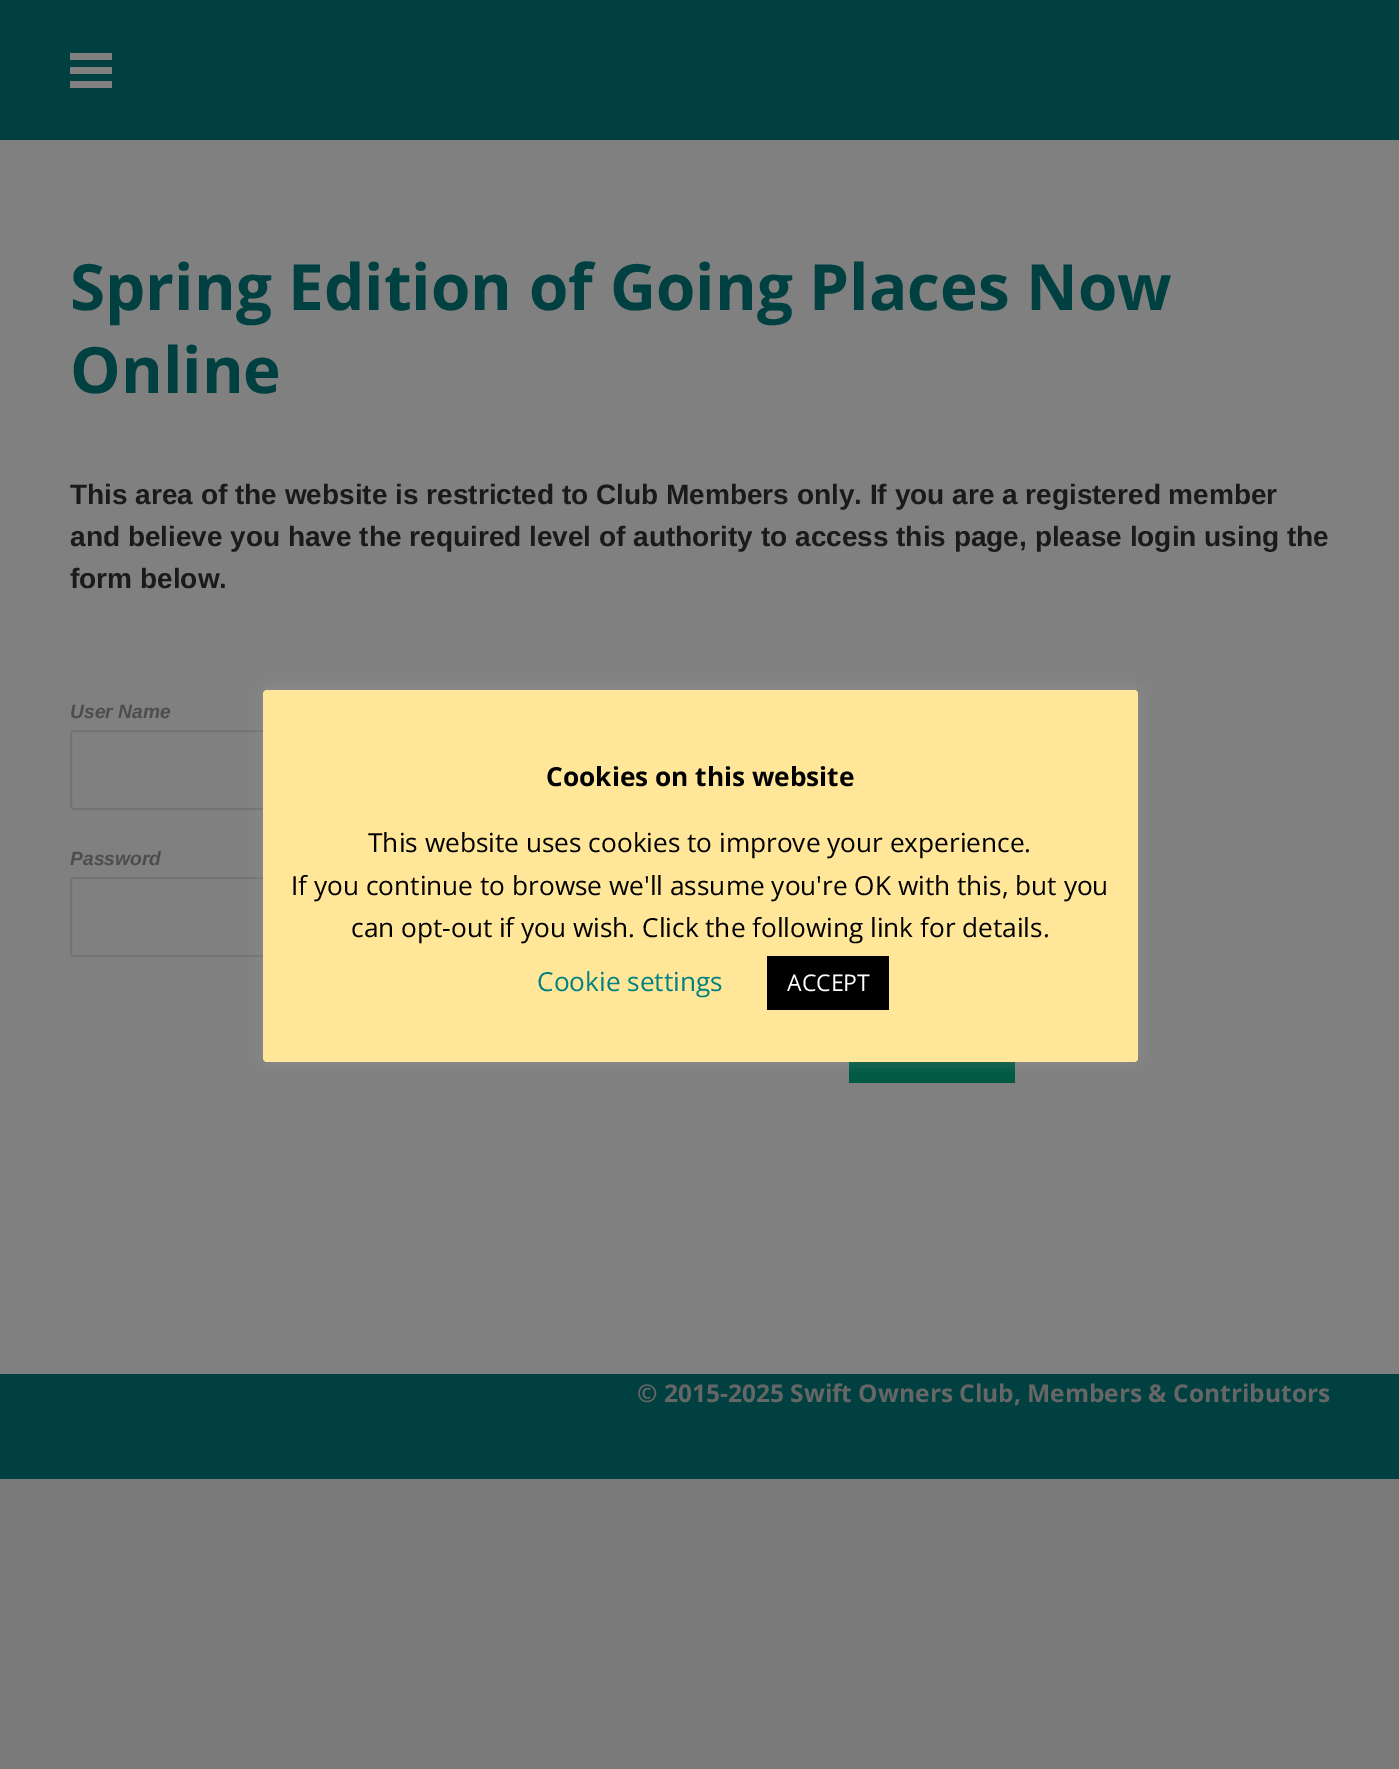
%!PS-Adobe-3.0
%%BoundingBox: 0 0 1399 1769
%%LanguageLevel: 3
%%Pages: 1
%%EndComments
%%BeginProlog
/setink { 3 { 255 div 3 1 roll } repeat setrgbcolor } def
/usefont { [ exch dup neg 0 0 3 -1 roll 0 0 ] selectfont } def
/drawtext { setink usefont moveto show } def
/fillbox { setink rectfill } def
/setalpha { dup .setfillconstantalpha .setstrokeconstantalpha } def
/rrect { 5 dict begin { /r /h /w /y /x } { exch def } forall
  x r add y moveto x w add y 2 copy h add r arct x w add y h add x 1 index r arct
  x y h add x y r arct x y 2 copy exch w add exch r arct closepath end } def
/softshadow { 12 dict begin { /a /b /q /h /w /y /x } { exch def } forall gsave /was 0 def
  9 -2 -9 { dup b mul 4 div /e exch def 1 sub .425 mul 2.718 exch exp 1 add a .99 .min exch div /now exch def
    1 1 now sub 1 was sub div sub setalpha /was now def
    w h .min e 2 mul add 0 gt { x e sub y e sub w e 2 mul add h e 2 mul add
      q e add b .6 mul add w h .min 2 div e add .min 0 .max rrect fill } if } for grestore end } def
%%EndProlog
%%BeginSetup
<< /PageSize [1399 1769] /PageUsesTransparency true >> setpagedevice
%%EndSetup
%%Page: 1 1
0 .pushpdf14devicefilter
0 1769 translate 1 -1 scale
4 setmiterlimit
0 0 1399 1769 122 122 122 fillbox
0 0 1399 140 0 64 64 fillbox
70 53 42 7 128 128 128 fillbox
70 67 42 7 128 128 128 fillbox
70 81 42 7 128 128 128 fillbox
0 140 1399 1234 128 128 128 fillbox
(Spring Edition of Going Places Now) 70 310 /OpenSans-Bold 63.75 0 64 64 drawtext
(Online) 70 393 /OpenSans-Bold 63.75 0 64 64 drawtext
(This area of the website is restricted to Club Members only. If you are a registered member) 70 504 /LiberationSans-Bold 28 26 26 26 drawtext
(and believe you have the required level of authority to access this page, please login using the) 70 546 /LiberationSans-Bold 28 26 26 26 drawtext
(form below.) 70 588 /LiberationSans-Bold 28 26 26 26 drawtext
(User Name) 70 718 /LiberationSans-BoldItalic 19.25 77 77 77 drawtext
115 115 115 setink
2 setlinewidth
71 731 943 78 3 rrect stroke
(Password) 70 865 /LiberationSans-BoldItalic 19.25 77 77 77 drawtext
115 115 115 setink
71 878 943 78 3 rrect stroke
849 1062 166 21 0 89 67 fillbox
0 1374 1399 105 0 64 64 fillbox
(© 2015-2025 Swift Owners Club, Members & Contributors) 637 1402 /OpenSans-Bold 24.5 102 102 102 drawtext
172 171 171 setink
263 688 875 373 4 9 0.3 softshadow
255 230 153 setink
263 690 875 372 4 rrect fill
(Cookies on this website) 546 786 /OpenSans-Bold 26.25 0 0 0 drawtext
(This website uses cookies to improve your experience.) 368 852 /OpenSans-Regular 26.25 0 0 0 drawtext
(If you continue to browse we'll assume you're OK with this, but you) 291 895 /OpenSans-Regular 26.25 0 0 0 drawtext
(can opt-out if you wish. Click the following link for details.) 351 937 /OpenSans-Regular 26.25 0 0 0 drawtext
(Cookie settings) 537 991 /OpenSans-Regular 26.25 0 128 128 drawtext
767 956 122 54 0 0 0 fillbox
(ACCEPT) 787 991 /OpenSans-Regular 23 255 255 255 drawtext
.poppdf14devicefilter showpage
%%EOF
